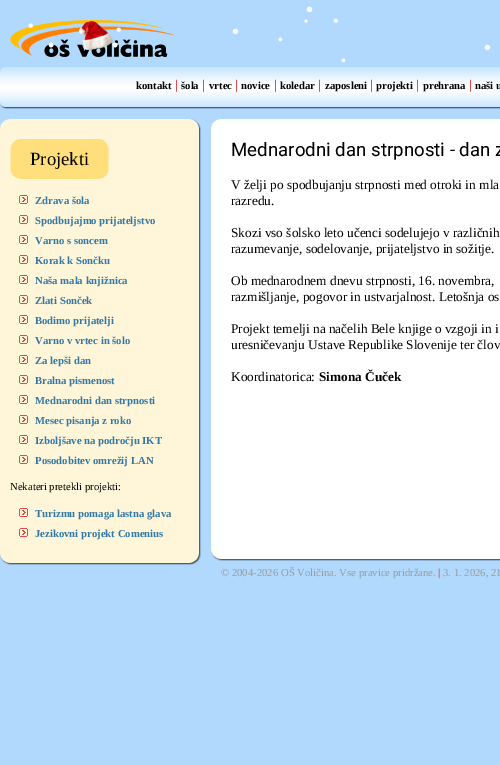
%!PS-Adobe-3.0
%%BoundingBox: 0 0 500 765
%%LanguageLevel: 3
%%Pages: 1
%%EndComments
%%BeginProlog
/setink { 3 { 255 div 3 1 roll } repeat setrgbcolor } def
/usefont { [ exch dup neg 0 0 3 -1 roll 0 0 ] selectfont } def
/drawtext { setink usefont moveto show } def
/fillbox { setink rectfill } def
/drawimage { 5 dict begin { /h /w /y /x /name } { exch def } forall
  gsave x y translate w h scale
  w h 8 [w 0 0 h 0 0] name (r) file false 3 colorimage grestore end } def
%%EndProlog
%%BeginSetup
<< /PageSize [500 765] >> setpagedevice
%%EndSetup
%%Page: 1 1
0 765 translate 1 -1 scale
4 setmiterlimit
0 0 500 765 177 217 253 fillbox
(•) 306 16 /LiberationSans-Regular 20 255 255 255 drawtext
(•) 304 25 /LiberationSans-Regular 12 255 255 255 drawtext
(•) 333 26 /LiberationSans-Regular 16 255 255 255 drawtext
(assets/img1.rgb) 10 20 164 37 drawimage
(•) 28 31 /LiberationSans-Regular 16 255 255 255 drawtext
(•) 116 35 /LiberationSans-Regular 16 255 255 255 drawtext
(•) 232 38 /LiberationSans-Regular 20 255 255 255 drawtext
(•) 278 44 /LiberationSans-Regular 14 255 255 255 drawtext
(•) 48 51 /LiberationSans-Regular 18 255 255 255 drawtext
(•) 112 51 /LiberationSans-Regular 18 255 255 255 drawtext
(•) 484 54 /LiberationSans-Regular 20 255 255 255 drawtext
(•) 341 65 /LiberationSans-Regular 14 255 255 255 drawtext
(assets/img2.rgb) 0 67 7 42 drawimage
(assets/img3.rgb) 7 67 493 42 drawimage
(kontakt) 136 89 /LiberationSerif-Bold 10.7 0 0 0 drawtext
(|) 175 89 /LiberationSerif-Bold 13.3 223 77 77 drawtext
(šola) 181 89 /LiberationSerif-Bold 10.7 0 0 0 drawtext
(|) 202 89 /LiberationSerif-Bold 13.3 223 77 77 drawtext
(vrtec) 209 89 /LiberationSerif-Bold 10.7 0 0 0 drawtext
(|) 235 89 /LiberationSerif-Bold 13.3 223 77 77 drawtext
(novice) 241 89 /LiberationSerif-Bold 10.7 0 0 0 drawtext
(|) 274 89 /LiberationSerif-Bold 13.3 223 77 77 drawtext
(koledar) 280 89 /LiberationSerif-Bold 10.7 0 0 0 drawtext
(|) 318 89 /LiberationSerif-Bold 13.3 223 77 77 drawtext
(zaposleni) 325 89 /LiberationSerif-Bold 10.7 0 0 0 drawtext
(|) 370 89 /LiberationSerif-Bold 13.3 223 77 77 drawtext
(projekti) 376 89 /LiberationSerif-Bold 10.7 0 0 0 drawtext
(|) 416 89 /LiberationSerif-Bold 13.3 223 77 77 drawtext
(prehrana) 423 89 /LiberationSerif-Bold 10.7 0 0 0 drawtext
(|) 469 89 /LiberationSerif-Bold 13.3 223 77 77 drawtext
(naši u) 475 89 /LiberationSerif-Bold 10.7 0 0 0 drawtext
(assets/img4.rgb) 0 119 10 10 drawimage
10 119 179 10 255 245 216 fillbox
(assets/img5.rgb) 189 119 12 10 drawimage
0 129 189 50 255 245 216 fillbox
(assets/img6.rgb) 189 129 12 50 drawimage
(assets/img7.rgb) 10 139 10 40 drawimage
20 139 79 40 255 222 124 fillbox
(Projekti) 30 165 /LiberationSerif-Regular 18.7 0 0 0 drawtext
(assets/img8.rgb) 99 139 10 40 drawimage
0 179 189 374 255 245 216 fillbox
(assets/img9.rgb) 189 179 12 374 drawimage
(assets/img10.rgb) 19 195 9 9 drawimage
(Zdrava šola) 35 204 /LiberationSerif-Bold 10.7 47 120 168 drawtext
(assets/img10.rgb) 19 215 9 9 drawimage
(Spodbujajmo prijateljstvo) 35 224 /LiberationSerif-Bold 10.7 47 120 168 drawtext
(assets/img10.rgb) 19 235 9 9 drawimage
(Varno s soncem) 35 244 /LiberationSerif-Bold 10.7 47 120 168 drawtext
(assets/img10.rgb) 19 255 9 9 drawimage
(Korak k Sončku) 35 264 /LiberationSerif-Bold 10.7 47 120 168 drawtext
(assets/img10.rgb) 19 275 9 9 drawimage
(Naša mala knjižnica) 35 284 /LiberationSerif-Bold 10.7 47 120 168 drawtext
(assets/img10.rgb) 19 295 9 9 drawimage
(Zlati Sonček) 35 304 /LiberationSerif-Bold 10.7 47 120 168 drawtext
(assets/img10.rgb) 19 315 9 9 drawimage
(Bodimo prijatelji) 35 324 /LiberationSerif-Bold 10.7 47 120 168 drawtext
(assets/img10.rgb) 19 335 9 9 drawimage
(Varno v vrtec in šolo) 35 344 /LiberationSerif-Bold 10.7 47 120 168 drawtext
(assets/img10.rgb) 19 355 9 9 drawimage
(Za lepši dan) 35 364 /LiberationSerif-Bold 10.7 47 120 168 drawtext
(assets/img10.rgb) 19 375 9 9 drawimage
(Bralna pismenost) 35 384 /LiberationSerif-Bold 10.7 47 120 168 drawtext
(assets/img10.rgb) 19 395 9 9 drawimage
(Mednarodni dan strpnosti) 35 404 /LiberationSerif-Bold 10.7 47 120 168 drawtext
(assets/img10.rgb) 19 415 9 9 drawimage
(Mesec pisanja z roko) 35 424 /LiberationSerif-Bold 10.7 47 120 168 drawtext
(assets/img10.rgb) 19 435 9 9 drawimage
(Izboljšave na področju IKT) 35 444 /LiberationSerif-Bold 10.7 47 120 168 drawtext
(assets/img10.rgb) 19 455 9 9 drawimage
(Posodobitev omrežij LAN) 35 464 /LiberationSerif-Bold 10.7 47 120 168 drawtext
(Nekateri pretekli projekti:) 10 490 /LiberationSerif-Regular 10.7 0 0 0 drawtext
(assets/img10.rgb) 19 508 9 9 drawimage
(Turizmu pomaga lastna glava) 35 517 /LiberationSerif-Bold 10.7 47 120 168 drawtext
(assets/img10.rgb) 19 528 9 9 drawimage
(Jezikovni projekt Comenius) 35 537 /LiberationSerif-Bold 10.7 47 120 168 drawtext
(assets/img11.rgb) 0 553 10 12 drawimage
(assets/img12.rgb) 10 553 179 12 drawimage
(assets/img13.rgb) 189 553 12 12 drawimage
211 119 289 20 255 255 255 fillbox
(assets/img14.rgb) 211 119 9 10 drawimage
211 139 289 400 255 255 255 fillbox
(Mednarodni dan strpnosti - dan z) 231 156 /Roboto-Regular 18.7 0 0 0 drawtext
(V želji po spodbujanju strpnosti med otroki in mla) 231 189 /LiberationSerif-Regular 13.3 0 0 0 drawtext
(razredu.) 231 205 /LiberationSerif-Regular 13.3 0 0 0 drawtext
(Skozi vso šolsko leto učenci sodelujejo v različnih) 231 237 /LiberationSerif-Regular 13.3 0 0 0 drawtext
(razumevanje, sodelovanje, prijateljstvo in sožitje.) 231 253 /LiberationSerif-Regular 13.3 0 0 0 drawtext
(Ob mednarodnem dnevu strpnosti, 16. novembra,) 231 285 /LiberationSerif-Regular 13.3 0 0 0 drawtext
(razmišljanje, pogovor in ustvarjalnost. Letošnja os) 231 301 /LiberationSerif-Regular 13.3 0 0 0 drawtext
(Projekt temelji na načelih Bele knjige o vzgoji in i) 231 333 /LiberationSerif-Regular 13.3 0 0 0 drawtext
(uresničevanju Ustave Republike Slovenije ter člov) 231 349 /LiberationSerif-Regular 13.3 0 0 0 drawtext
(Koordinatorica:) 231 381 /LiberationSerif-Regular 13.3 0 0 0 drawtext
(Simona Čuček) 319 381 /LiberationSerif-Bold 13.3 0 0 0 drawtext
(assets/img15.rgb) 211 539 20 22 drawimage
(assets/img16.rgb) 231 539 269 22 drawimage
(© 2004-2026 OŠ Voličina. Vse pravice pridržane.) 221 576 /LiberationSerif-Regular 10.7 155 155 155 drawtext
(|) 438 576 /LiberationSerif-Bold 10.7 223 77 77 drawtext
(3. 1. 2026, 21) 443 576 /LiberationSerif-Regular 10.7 155 155 155 drawtext
showpage
%%EOF
